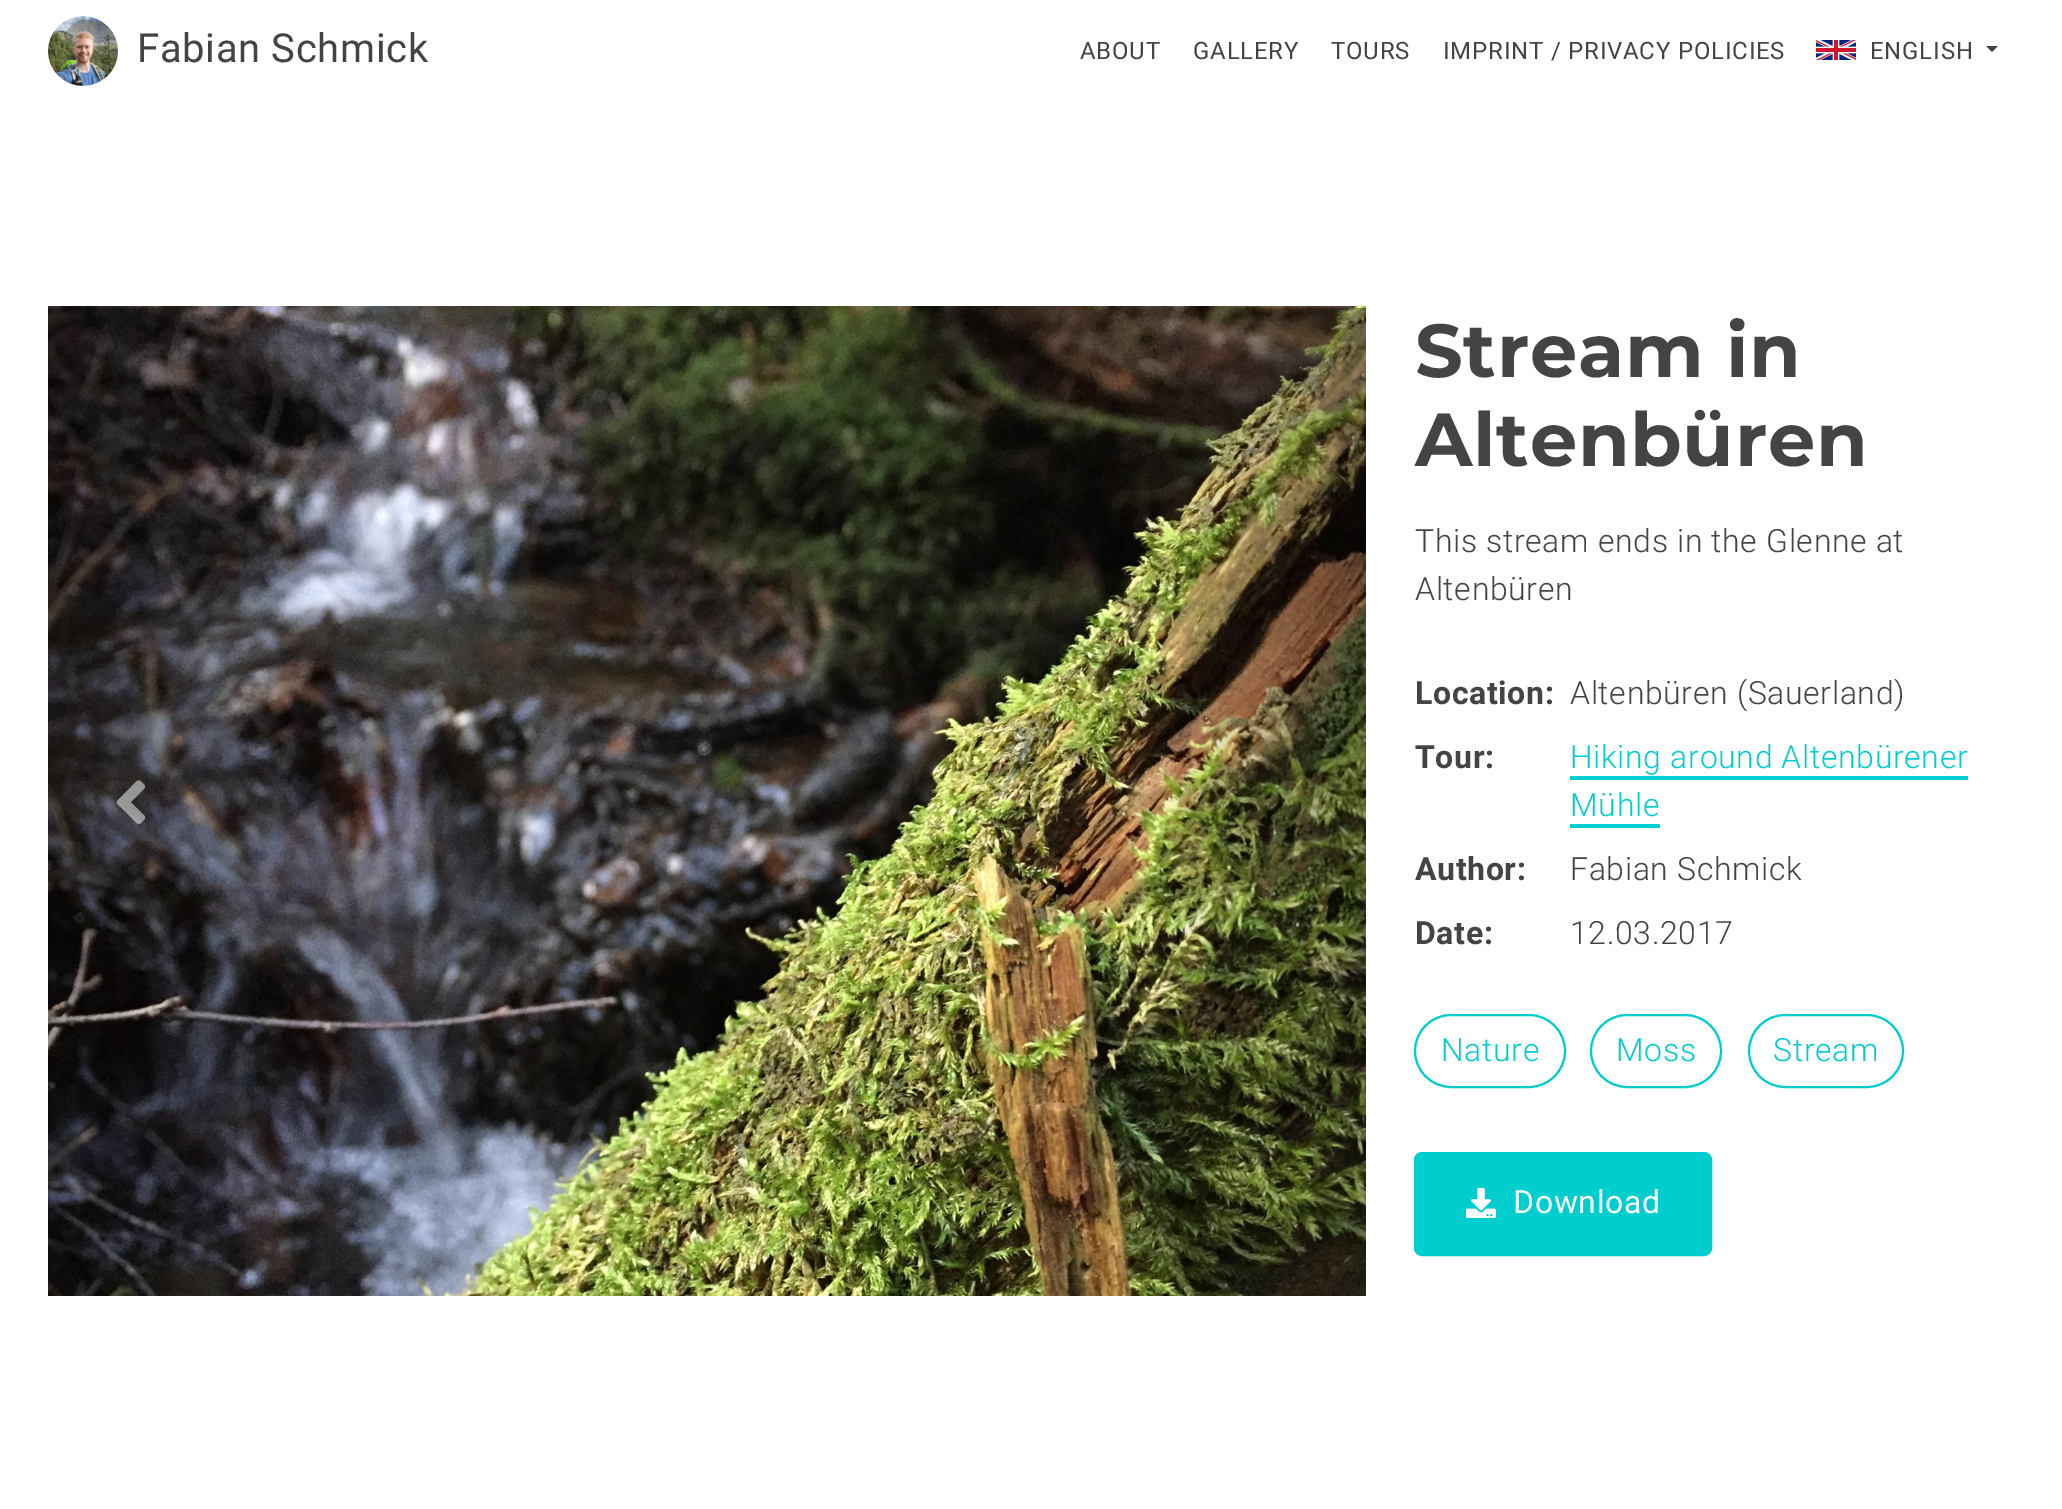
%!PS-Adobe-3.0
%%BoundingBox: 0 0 2062 1509
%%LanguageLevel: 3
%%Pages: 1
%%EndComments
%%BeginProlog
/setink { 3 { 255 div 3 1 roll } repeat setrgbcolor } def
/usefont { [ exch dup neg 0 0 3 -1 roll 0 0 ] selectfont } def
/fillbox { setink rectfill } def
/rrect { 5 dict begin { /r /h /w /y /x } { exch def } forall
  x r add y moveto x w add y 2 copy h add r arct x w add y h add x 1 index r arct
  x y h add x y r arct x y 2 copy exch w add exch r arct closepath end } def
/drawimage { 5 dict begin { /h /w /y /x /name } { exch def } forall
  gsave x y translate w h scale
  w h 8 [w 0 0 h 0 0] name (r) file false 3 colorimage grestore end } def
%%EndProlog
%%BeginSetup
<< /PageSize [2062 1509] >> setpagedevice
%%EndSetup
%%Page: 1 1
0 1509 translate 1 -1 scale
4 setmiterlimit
0 0 2062 1509 255 255 255 fillbox
(assets/img1.rgb) 48 16 70 70 drawimage
/Roboto-Regular 40 usefont
68 68 68 setink
137 62 moveto 0.65 0 (Fabian Schmick) ashow
/Roboto-Regular 24 usefont
1080 59 moveto 0.8 0 (ABOUT) ashow
1193 59 moveto 0.8 0 (GALLERY) ashow
1331 59 moveto 0.8 0 (TOURS) ashow
1443 59 moveto 0.8 0 (IMPRINT / PRIVACY POLICIES) ashow
(assets/img2.rgb) 1816 40 40 20 drawimage
1870 59 moveto 0.8 0 (ENGLISH) ashow
1986 46 moveto 1998 46 lineto 1992 52 lineto closepath fill
(assets/img3.rgb) 48 306 1318 990 drawimage
(assets/img4.rgb) 116 780 30 44 drawimage
/Montserrat-Thin 75 usefont
1415 377 moveto 0.65 0 (Stream in) ashow
1415 466 moveto 0.65 0 (Altenbüren) ashow
/Roboto-Light 32 usefont
1415 552 moveto 0.65 0 (This stream ends in the Glenne at) ashow
1415 600 moveto 0.65 0 (Altenbüren) ashow
/Roboto-Bold 32 usefont
1415 704 moveto 0.65 0 (Location:) ashow
/Roboto-Light 32 usefont
1570 704 moveto 0.65 0 (Altenbüren \(Sauerland\)) ashow
/Roboto-Bold 32 usefont
1415 768 moveto 0.65 0 (Tour:) ashow
/Roboto-Light 32 usefont
0 205 205 setink
1570 768 moveto 0.65 0 (Hiking around Altenbürener) ashow
1570 776 398 4 0 205 205 fillbox
1570 816 moveto 0.65 0 (Mühle) ashow
1570 824 90 4 0 205 205 fillbox
/Roboto-Bold 32 usefont
68 68 68 setink
1415 880 moveto 0.65 0 (Author:) ashow
/Roboto-Light 32 usefont
1570 880 moveto 0.65 0 (Fabian Schmick) ashow
/Roboto-Bold 32 usefont
1415 944 moveto 0.65 0 (Date:) ashow
/Roboto-Light 32 usefont
1570 944 moveto 0.65 0 (12.03.2017) ashow
0 205 205 setink
2 setlinewidth
1415 1015 150 72 36 rrect stroke
1441 1061 moveto 0.65 0 (Nature) ashow
1591 1015 130 72 36 rrect stroke
1616 1061 moveto 0.65 0 (Moss) ashow
1749 1015 154 72 36 rrect stroke
1773 1061 moveto 0.65 0 (Stream) ashow
1416 1154 294 100 6 rrect gsave fill grestore
4 setlinewidth
stroke
(assets/img5.rgb) 1466 1188 30 30 drawimage
/Roboto-Regular 32 usefont
255 255 255 setink
1513 1213 moveto 0.65 0 (Download) ashow
showpage
%%EOF
